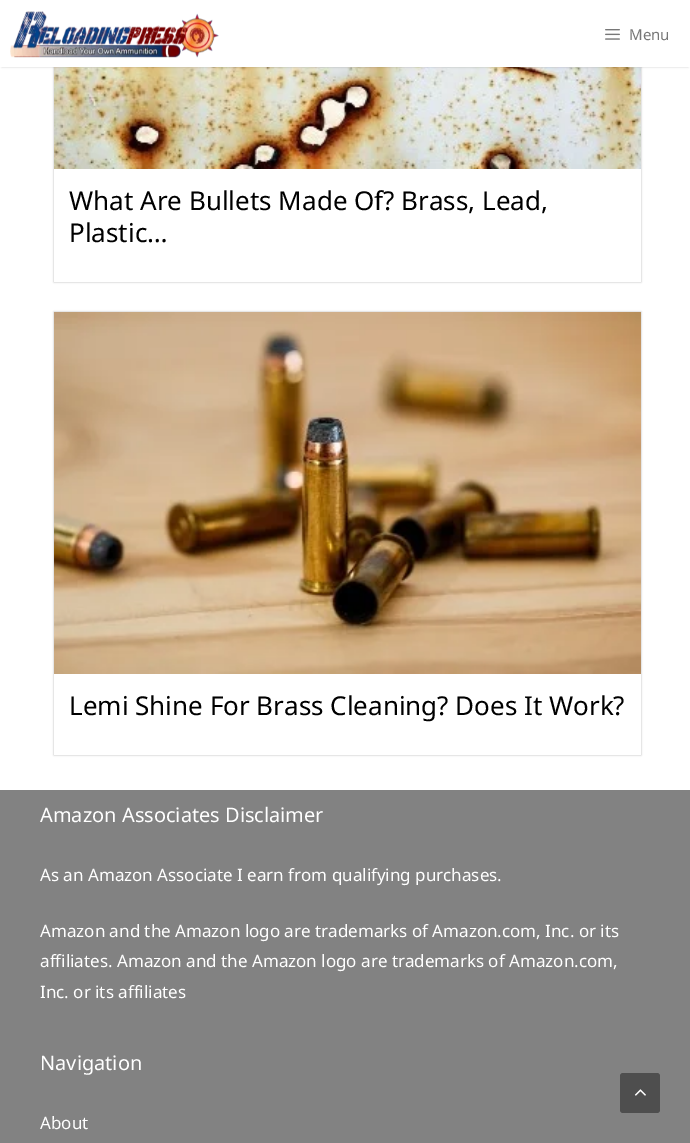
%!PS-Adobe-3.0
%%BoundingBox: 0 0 690 1143
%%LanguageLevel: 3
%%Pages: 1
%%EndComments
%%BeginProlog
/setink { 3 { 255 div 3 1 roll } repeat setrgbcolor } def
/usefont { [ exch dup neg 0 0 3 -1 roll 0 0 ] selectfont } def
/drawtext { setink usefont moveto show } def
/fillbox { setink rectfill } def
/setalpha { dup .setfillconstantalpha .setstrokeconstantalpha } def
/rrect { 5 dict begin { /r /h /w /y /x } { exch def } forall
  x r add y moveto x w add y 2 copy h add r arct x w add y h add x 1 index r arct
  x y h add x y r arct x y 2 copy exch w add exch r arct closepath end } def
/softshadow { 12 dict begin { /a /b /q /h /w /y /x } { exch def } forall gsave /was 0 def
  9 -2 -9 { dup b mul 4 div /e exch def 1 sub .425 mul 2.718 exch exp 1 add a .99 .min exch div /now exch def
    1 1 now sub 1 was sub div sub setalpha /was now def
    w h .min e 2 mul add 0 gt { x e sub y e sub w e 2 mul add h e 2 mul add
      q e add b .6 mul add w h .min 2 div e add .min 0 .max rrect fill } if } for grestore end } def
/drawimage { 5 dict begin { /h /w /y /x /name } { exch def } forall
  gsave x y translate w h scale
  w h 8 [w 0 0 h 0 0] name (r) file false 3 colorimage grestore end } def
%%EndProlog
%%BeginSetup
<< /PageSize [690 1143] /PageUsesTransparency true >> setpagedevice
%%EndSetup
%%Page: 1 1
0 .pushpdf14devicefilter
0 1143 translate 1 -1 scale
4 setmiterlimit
0 0 690 1143 255 255 255 fillbox
gsave
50 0 moveto 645 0 lineto 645 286 lineto 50 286 lineto closepath 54 -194 moveto 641 -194 lineto 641 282 lineto 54 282 lineto closepath eoclip newpath
0 0 0 setink
54 -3 587 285 0 1 0.3 softshadow
grestore
(assets/img3.rgb) 54 67 587 102 drawimage
0 0 0 setink
2 4 686 63 0 1 0.2 softshadow
0 0 690 67 255 255 255 fillbox
(assets/img1.rgb) 10 11 209 47 drawimage
(assets/img2.rgb) 605 29 15 11 drawimage
(Menu) 629 40 /NotoSans-Regular 15 119 119 119 drawtext
(What Are Bullets Made Of? Brass, Lead,) 69 210 /NotoSans-Regular 26 0 0 0 drawtext
(Plastic…) 69 242 /NotoSans-Regular 26 0 0 0 drawtext
gsave
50 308 moveto 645 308 lineto 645 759 lineto 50 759 lineto closepath 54 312 moveto 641 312 lineto 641 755 lineto 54 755 lineto closepath eoclip newpath
54 312 587 443 0 1 0.3 softshadow
grestore
(assets/img4.rgb) 54 312 587 362 drawimage
(Lemi Shine For Brass Cleaning? Does It Work?) 69 715 /NotoSans-Regular 26 0 0 0 drawtext
0 790 690 353 130 130 130 fillbox
(Amazon Associates Disclaimer) 40 822 /NotoSans-Regular 20 255 255 255 drawtext
(As an Amazon Associate I earn from qualifying purchases.) 40 881 /NotoSans-Regular 17 255 255 255 drawtext
(Amazon and the Amazon logo are trademarks of Amazon.com, Inc. or its) 40 937 /NotoSans-Regular 17 255 255 255 drawtext
(affiliates. Amazon and the Amazon logo are trademarks of Amazon.com,) 40 967 /NotoSans-Regular 17 255 255 255 drawtext
(Inc. or its affiliates) 40 998 /NotoSans-Regular 17 255 255 255 drawtext
(Navigation) 40 1070 /NotoSans-Regular 20 255 255 255 drawtext
(About) 40 1129 /NotoSans-Regular 17 255 255 255 drawtext
78 78 78 setink
620 1073 40 40 3 rrect fill
(assets/img5.rgb) 634 1089 12 7 drawimage
.poppdf14devicefilter showpage
%%EOF
